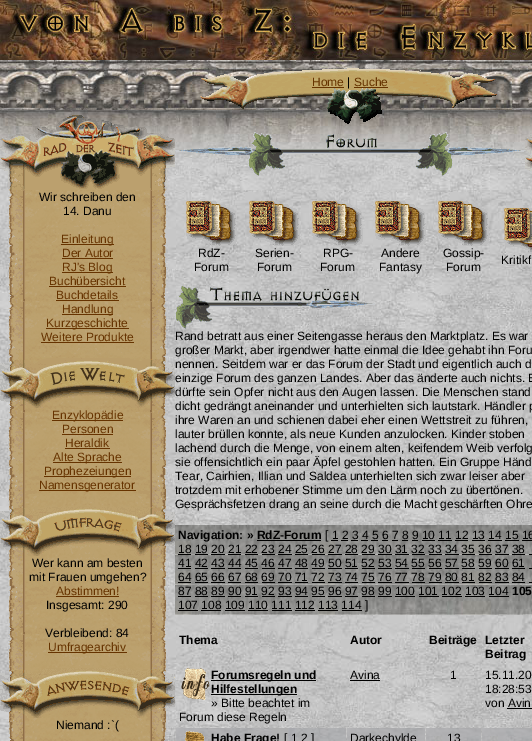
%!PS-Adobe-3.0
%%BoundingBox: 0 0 532 741
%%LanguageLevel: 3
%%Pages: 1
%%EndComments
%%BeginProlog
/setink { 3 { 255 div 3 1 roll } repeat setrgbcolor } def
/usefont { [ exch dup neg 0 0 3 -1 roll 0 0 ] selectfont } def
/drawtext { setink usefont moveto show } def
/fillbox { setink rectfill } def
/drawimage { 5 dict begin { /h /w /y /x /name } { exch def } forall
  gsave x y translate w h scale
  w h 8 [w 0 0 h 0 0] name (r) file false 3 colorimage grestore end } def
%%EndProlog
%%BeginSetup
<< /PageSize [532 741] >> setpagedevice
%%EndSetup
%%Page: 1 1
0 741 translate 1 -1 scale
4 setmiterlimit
0 0 532 741 255 255 255 fillbox
(assets/img1.rgb) 0 190 532 551 drawimage
(assets/img2.rgb) 0 0 532 60 drawimage
(assets/img3.rgb) 0 60 532 50 drawimage
(assets/img4.rgb) 200 68 297 42 drawimage
(Home) 312 86 /LiberationSans-Regular 12 102 51 0 drawtext
312 87 32 1 102 51 0 fillbox
(|) 347 86 /LiberationSans-Regular 12 0 0 0 drawtext
(Suche) 354 86 /LiberationSans-Regular 12 102 51 0 drawtext
354 87 34 1 102 51 0 fillbox
(assets/img5.rgb) 0 110 532 80 drawimage
(assets/img6.rgb) 0 115 175 75 drawimage
(assets/img7.rgb) 328 110 54 14 drawimage
(assets/img8.rgb) 175 132 350 44 drawimage
(assets/img9.rgb) 525 137 7 34 drawimage
(assets/img10.rgb) 9 190 157 551 drawimage
(Wir schreiben den) 39 201 /LiberationSans-Regular 12 0 0 0 drawtext
(14. Danu) 63 215 /LiberationSans-Regular 12 0 0 0 drawtext
61 244 53 1 102 51 0 fillbox
(Einleitung) 61 243 /LiberationSans-Regular 12 102 51 0 drawtext
(Der Autor) 62 257 /LiberationSans-Regular 12 102 51 0 drawtext
62 258 51 1 102 51 0 fillbox
62 272 51 1 102 51 0 fillbox
(RJ's Blog) 62 271 /LiberationSans-Regular 12 102 51 0 drawtext
(Buchübersicht) 49 285 /LiberationSans-Regular 12 102 51 0 drawtext
49 286 77 1 102 51 0 fillbox
(Buchdetails) 56 299 /LiberationSans-Regular 12 102 51 0 drawtext
56 300 63 1 102 51 0 fillbox
62 314 51 1 102 51 0 fillbox
(Handlung) 62 313 /LiberationSans-Regular 12 102 51 0 drawtext
46 328 83 1 102 51 0 fillbox
(Kurzgeschichte) 46 327 /LiberationSans-Regular 12 102 51 0 drawtext
(Weitere Produkte) 41 341 /LiberationSans-Regular 12 102 51 0 drawtext
41 342 93 1 102 51 0 fillbox
(assets/img11.rgb) 0 358 175 50 drawimage
52 420 71 1 102 51 0 fillbox
(Enzyklopädie) 52 419 /LiberationSans-Regular 12 102 51 0 drawtext
(Personen) 62 433 /LiberationSans-Regular 12 102 51 0 drawtext
62 434 51 1 102 51 0 fillbox
(Heraldik) 65 447 /LiberationSans-Regular 12 102 51 0 drawtext
65 448 45 1 102 51 0 fillbox
53 462 69 1 102 51 0 fillbox
(Alte Sprache) 53 461 /LiberationSans-Regular 12 102 51 0 drawtext
44 476 87 1 102 51 0 fillbox
(Prophezeiungen) 44 475 /LiberationSans-Regular 12 102 51 0 drawtext
39 490 97 1 102 51 0 fillbox
(Namensgenerator) 39 489 /LiberationSans-Regular 12 102 51 0 drawtext
(assets/img12.rgb) 0 507 175 49 drawimage
(Wer kann am besten) 32 567 /LiberationSans-Regular 12 0 0 0 drawtext
(mit Frauen umgehen?) 29 581 /LiberationSans-Regular 12 0 0 0 drawtext
(Abstimmen!) 56 595 /LiberationSans-Regular 12 102 51 0 drawtext
56 596 63 1 102 51 0 fillbox
(Insgesamt: 290) 46 609 /LiberationSans-Regular 12 0 0 0 drawtext
(Verbleibend: 84) 45 637 /LiberationSans-Regular 12 0 0 0 drawtext
48 652 79 1 102 51 0 fillbox
(Umfragearchiv) 48 651 /LiberationSans-Regular 12 102 51 0 drawtext
(assets/img13.rgb) 0 668 175 50 drawimage
(Niemand :`\() 56 729 /LiberationSans-Regular 12 0 0 0 drawtext
(assets/img14.rgb) 186 201 51 45 drawimage
(RdZ-) 198 257 /LiberationSans-Regular 12 0 0 0 drawtext
(Forum) 194 271 /LiberationSans-Regular 12 0 0 0 drawtext
(assets/img15.rgb) 249 201 51 45 drawimage
(Serien-) 255 257 /LiberationSans-Regular 12 0 0 0 drawtext
(Forum) 257 271 /LiberationSans-Regular 12 0 0 0 drawtext
(assets/img16.rgb) 312 201 51 45 drawimage
(RPG-) 323 257 /LiberationSans-Regular 12 0 0 0 drawtext
(Forum) 320 271 /LiberationSans-Regular 12 0 0 0 drawtext
(assets/img17.rgb) 375 201 51 45 drawimage
(Andere) 381 257 /LiberationSans-Regular 12 0 0 0 drawtext
(Fantasy) 379 271 /LiberationSans-Regular 12 0 0 0 drawtext
(assets/img18.rgb) 438 201 51 45 drawimage
(Gossip-) 443 257 /LiberationSans-Regular 12 0 0 0 drawtext
(Forum) 446 271 /LiberationSans-Regular 12 0 0 0 drawtext
(assets/img19.rgb) 504 208 28 45 drawimage
(Kritikf) 501 264 /LiberationSans-Regular 12 0 0 0 drawtext
(assets/img20.rgb) 175 285 200 44 drawimage
(Rand betratt aus einer Seitengasse heraus den Marktplatz. Es war) 175 340 /LiberationSans-Regular 12 0 0 0 drawtext
(großer Markt, aber irgendwer hatte einmal die Idee gehabt ihn Foru) 175 354 /LiberationSans-Regular 12 0 0 0 drawtext
(nennen. Seitdem war er das Forum der Stadt und eigentlich auch d) 175 368 /LiberationSans-Regular 12 0 0 0 drawtext
(einzige Forum des ganzen Landes. Aber das änderte auch nichts. E) 175 382 /LiberationSans-Regular 12 0 0 0 drawtext
(dürfte sein Opfer nicht aus den Augen lassen. Die Menschen stand) 175 396 /LiberationSans-Regular 12 0 0 0 drawtext
(dicht gedrängt aneinander und unterhielten sich lautstark. Händler p) 175 410 /LiberationSans-Regular 12 0 0 0 drawtext
(ihre Waren an und schienen dabei eher einen Wettstreit zu führen,) 175 424 /LiberationSans-Regular 12 0 0 0 drawtext
(lauter brüllen konnte, als neue Kunden anzulocken. Kinder stoben) 175 438 /LiberationSans-Regular 12 0 0 0 drawtext
(lachend durch die Menge, von einem alten, keifendem Weib verfolg) 175 452 /LiberationSans-Regular 12 0 0 0 drawtext
(sie offensichtlich ein paar Äpfel gestohlen hatten. Ein Gruppe Händ) 175 466 /LiberationSans-Regular 12 0 0 0 drawtext
(Tear, Cairhien, Illian und Saldea unterhielten sich zwar leiser aber) 175 480 /LiberationSans-Regular 12 0 0 0 drawtext
(trotzdem mit erhobener Stimme um den Lärm noch zu übertönen.) 175 494 /LiberationSans-Regular 12 0 0 0 drawtext
(Gesprächsfetzen drang an seine durch die Macht geschärften Ohre) 175 508 /LiberationSans-Regular 12 0 0 0 drawtext
(assets/img21.rgb) 175 525 357 90 drawimage
(Navigation: » RdZ-Forum) 178 539 /LiberationSans-Bold 12 0 0 0 drawtext
257 540 64 1 0 0 0 fillbox
([ 1 2 3 4 5 6 7 8 9 10 11 12 13 14 15 16) 325 539 /LiberationSans-Regular 12 0 0 0 drawtext
331 540 7 1 0 0 0 fillbox
341 540 7 1 0 0 0 fillbox
351 540 7 1 0 0 0 fillbox
361 540 7 1 0 0 0 fillbox
371 540 7 1 0 0 0 fillbox
382 540 6 1 0 0 0 fillbox
392 540 6 1 0 0 0 fillbox
402 540 6 1 0 0 0 fillbox
412 540 6 1 0 0 0 fillbox
422 540 13 1 0 0 0 fillbox
438 540 14 1 0 0 0 fillbox
455 540 13 1 0 0 0 fillbox
472 540 13 1 0 0 0 fillbox
488 540 14 1 0 0 0 fillbox
505 540 14 1 0 0 0 fillbox
522 540 10 1 0 0 0 fillbox
(18 19 20 21 22 23 24 25 26 27 28 29 30 31 32 33 34 35 36 37 38) 178 553 /LiberationSans-Regular 12 0 0 0 drawtext
178 554 13 1 0 0 0 fillbox
195 554 13 1 0 0 0 fillbox
211 554 14 1 0 0 0 fillbox
228 554 13 1 0 0 0 fillbox
245 554 13 1 0 0 0 fillbox
262 554 13 1 0 0 0 fillbox
278 554 14 1 0 0 0 fillbox
295 554 13 1 0 0 0 fillbox
312 554 13 1 0 0 0 fillbox
328 554 14 1 0 0 0 fillbox
345 554 13 1 0 0 0 fillbox
362 554 13 1 0 0 0 fillbox
378 554 14 1 0 0 0 fillbox
395 554 14 1 0 0 0 fillbox
412 554 13 1 0 0 0 fillbox
429 554 13 1 0 0 0 fillbox
445 554 14 1 0 0 0 fillbox
462 554 13 1 0 0 0 fillbox
479 554 13 1 0 0 0 fillbox
495 554 14 1 0 0 0 fillbox
512 554 13 1 0 0 0 fillbox
529 554 3 1 0 0 0 fillbox
(41 42 43 44 45 46 47 48 49 50 51 52 53 54 55 56 57 58 59 60 61) 178 567 /LiberationSans-Regular 12 0 0 0 drawtext
178 568 13 1 0 0 0 fillbox
195 568 13 1 0 0 0 fillbox
211 568 14 1 0 0 0 fillbox
228 568 13 1 0 0 0 fillbox
245 568 13 1 0 0 0 fillbox
262 568 13 1 0 0 0 fillbox
278 568 14 1 0 0 0 fillbox
295 568 13 1 0 0 0 fillbox
312 568 13 1 0 0 0 fillbox
328 568 14 1 0 0 0 fillbox
345 568 13 1 0 0 0 fillbox
362 568 13 1 0 0 0 fillbox
378 568 14 1 0 0 0 fillbox
395 568 14 1 0 0 0 fillbox
412 568 13 1 0 0 0 fillbox
429 568 13 1 0 0 0 fillbox
445 568 14 1 0 0 0 fillbox
462 568 13 1 0 0 0 fillbox
479 568 13 1 0 0 0 fillbox
495 568 14 1 0 0 0 fillbox
512 568 13 1 0 0 0 fillbox
529 568 3 1 0 0 0 fillbox
(64 65 66 67 68 69 70 71 72 73 74 75 76 77 78 79 80 81 82 83 84) 178 581 /LiberationSans-Regular 12 0 0 0 drawtext
178 582 13 1 0 0 0 fillbox
195 582 13 1 0 0 0 fillbox
211 582 14 1 0 0 0 fillbox
228 582 13 1 0 0 0 fillbox
245 582 13 1 0 0 0 fillbox
262 582 13 1 0 0 0 fillbox
278 582 14 1 0 0 0 fillbox
295 582 13 1 0 0 0 fillbox
312 582 13 1 0 0 0 fillbox
328 582 14 1 0 0 0 fillbox
345 582 13 1 0 0 0 fillbox
362 582 13 1 0 0 0 fillbox
378 582 14 1 0 0 0 fillbox
395 582 14 1 0 0 0 fillbox
412 582 13 1 0 0 0 fillbox
429 582 13 1 0 0 0 fillbox
445 582 14 1 0 0 0 fillbox
462 582 13 1 0 0 0 fillbox
479 582 13 1 0 0 0 fillbox
495 582 14 1 0 0 0 fillbox
512 582 13 1 0 0 0 fillbox
529 582 3 1 0 0 0 fillbox
(87 88 89 90 91 92 93 94 95 96 97 98 99 100 101 102 103 104) 178 595 /LiberationSans-Regular 12 0 0 0 drawtext
178 596 13 1 0 0 0 fillbox
195 596 13 1 0 0 0 fillbox
211 596 14 1 0 0 0 fillbox
228 596 13 1 0 0 0 fillbox
245 596 13 1 0 0 0 fillbox
262 596 13 1 0 0 0 fillbox
278 596 14 1 0 0 0 fillbox
295 596 13 1 0 0 0 fillbox
312 596 13 1 0 0 0 fillbox
328 596 14 1 0 0 0 fillbox
345 596 13 1 0 0 0 fillbox
362 596 13 1 0 0 0 fillbox
378 596 14 1 0 0 0 fillbox
395 596 20 1 0 0 0 fillbox
419 596 20 1 0 0 0 fillbox
442 596 20 1 0 0 0 fillbox
465 596 20 1 0 0 0 fillbox
489 596 20 1 0 0 0 fillbox
(105) 512 595 /LiberationSans-Bold 12 0 0 0 drawtext
178 610 20 1 0 0 0 fillbox
(107 108 109 110 111 112 113 114 ]) 178 609 /LiberationSans-Regular 12 0 0 0 drawtext
201 610 20 1 0 0 0 fillbox
225 610 20 1 0 0 0 fillbox
248 610 20 1 0 0 0 fillbox
272 610 20 1 0 0 0 fillbox
295 610 20 1 0 0 0 fillbox
318 610 20 1 0 0 0 fillbox
342 610 20 1 0 0 0 fillbox
(Thema) 179 644 /LiberationSans-Bold 12 0 0 0 drawtext
(Autor) 350 644 /LiberationSans-Bold 12 0 0 0 drawtext
(Beiträge) 429 644 /LiberationSans-Bold 12 0 0 0 drawtext
(Letzter) 485 644 /LiberationSans-Bold 12 0 0 0 drawtext
(Beitrag) 485 658 /LiberationSans-Bold 12 0 0 0 drawtext
(assets/img22.rgb) 181 668 29 32 drawimage
211 680 105 1 0 0 0 fillbox
(Forumsregeln und) 211 679 /LiberationSans-Bold 12 0 0 0 drawtext
211 694 86 1 0 0 0 fillbox
(Hilfestellungen) 211 693 /LiberationSans-Bold 12 0 0 0 drawtext
(» Bitte beachtet im) 211 707 /LiberationSans-Regular 12 0 0 0 drawtext
(Forum diese Regeln) 179 721 /LiberationSans-Regular 12 0 0 0 drawtext
(Avina) 350 679 /LiberationSans-Regular 12 0 0 0 drawtext
350 680 30 1 0 0 0 fillbox
(1) 450 679 /LiberationSans-Regular 12 0 0 0 drawtext
(15.11.20) 485 679 /LiberationSans-Regular 12 0 0 0 drawtext
(18:28:53) 485 693 /LiberationSans-Regular 12 0 0 0 drawtext
(von Avin) 485 707 /LiberationSans-Regular 12 0 0 0 drawtext
507 708 25 1 0 0 0 fillbox
(assets/img23.rgb) 176 728 170 13 drawimage
(assets/img24.rgb) 185 731 20 10 drawimage
(Habe Frage!) 211 742 /LiberationSans-Bold 12 0 0 0 drawtext
([ 1 2 ]) 284 742 /LiberationSans-Regular 12 0 0 0 drawtext
(assets/img25.rgb) 347 728 78 13 drawimage
(Darkechylde) 350 742 /LiberationSans-Regular 12 0 0 0 drawtext
(assets/img26.rgb) 426 728 55 13 drawimage
(13) 447 742 /LiberationSans-Regular 12 0 0 0 drawtext
(assets/img27.rgb) 482 728 50 13 drawimage
showpage
%%EOF
